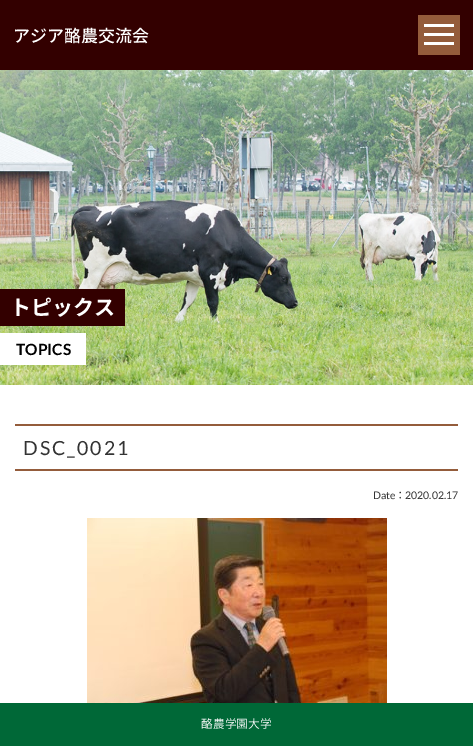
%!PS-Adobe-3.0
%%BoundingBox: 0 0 473 746
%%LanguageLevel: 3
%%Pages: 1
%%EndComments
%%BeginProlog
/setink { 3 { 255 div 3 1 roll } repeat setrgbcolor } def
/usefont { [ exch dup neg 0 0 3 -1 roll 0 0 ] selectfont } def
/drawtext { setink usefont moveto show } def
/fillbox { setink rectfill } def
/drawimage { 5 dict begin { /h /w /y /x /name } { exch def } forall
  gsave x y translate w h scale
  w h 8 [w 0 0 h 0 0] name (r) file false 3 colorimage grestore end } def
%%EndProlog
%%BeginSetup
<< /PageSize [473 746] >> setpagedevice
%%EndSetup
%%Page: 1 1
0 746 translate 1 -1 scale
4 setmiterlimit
0 0 473 746 255 255 255 fillbox
0 0 473 70 51 0 0 fillbox
(アジア酪農交流会) 13 42 /NotoSansJP-Medium 17 255 255 255 drawtext
418 15 42 40 148 92 59 fillbox
424 24 30 3 255 255 255 fillbox
424 33 30 3 255 255 255 fillbox
424 42 30 3 255 255 255 fillbox
(assets/img1.rgb) 0 70 473 315 drawimage
0 289 125 37 51 0 0 fillbox
(トピックス) 10 315 /NotoSansJP-Bold 21 255 255 255 drawtext
0 333 86 32 255 255 255 fillbox
(TOPICS) 16 355 /Lato-Bold 15.5 0 0 0 drawtext
15 424 443 2 148 92 59 fillbox
15 469 443 2 148 92 59 fillbox
/Lato-Regular 19.5 usefont
51 51 51 setink
23 455 moveto 2 0 (DSC_0021) ashow
(Date) 373 499 /Lato-Regular 10.5 51 51 51 drawtext
(：) 395 499 /NotoSansJP-Regular 10.5 51 51 51 drawtext
(2020.02.17) 405 499 /Lato-Regular 10.5 51 51 51 drawtext
(assets/img2.rgb) 87 518 300 185 drawimage
0 703 473 43 0 104 55 fillbox
(酪農学園大学) 201 728 /NotoSansJP-Light 11.75 255 255 255 drawtext
showpage
%%EOF
